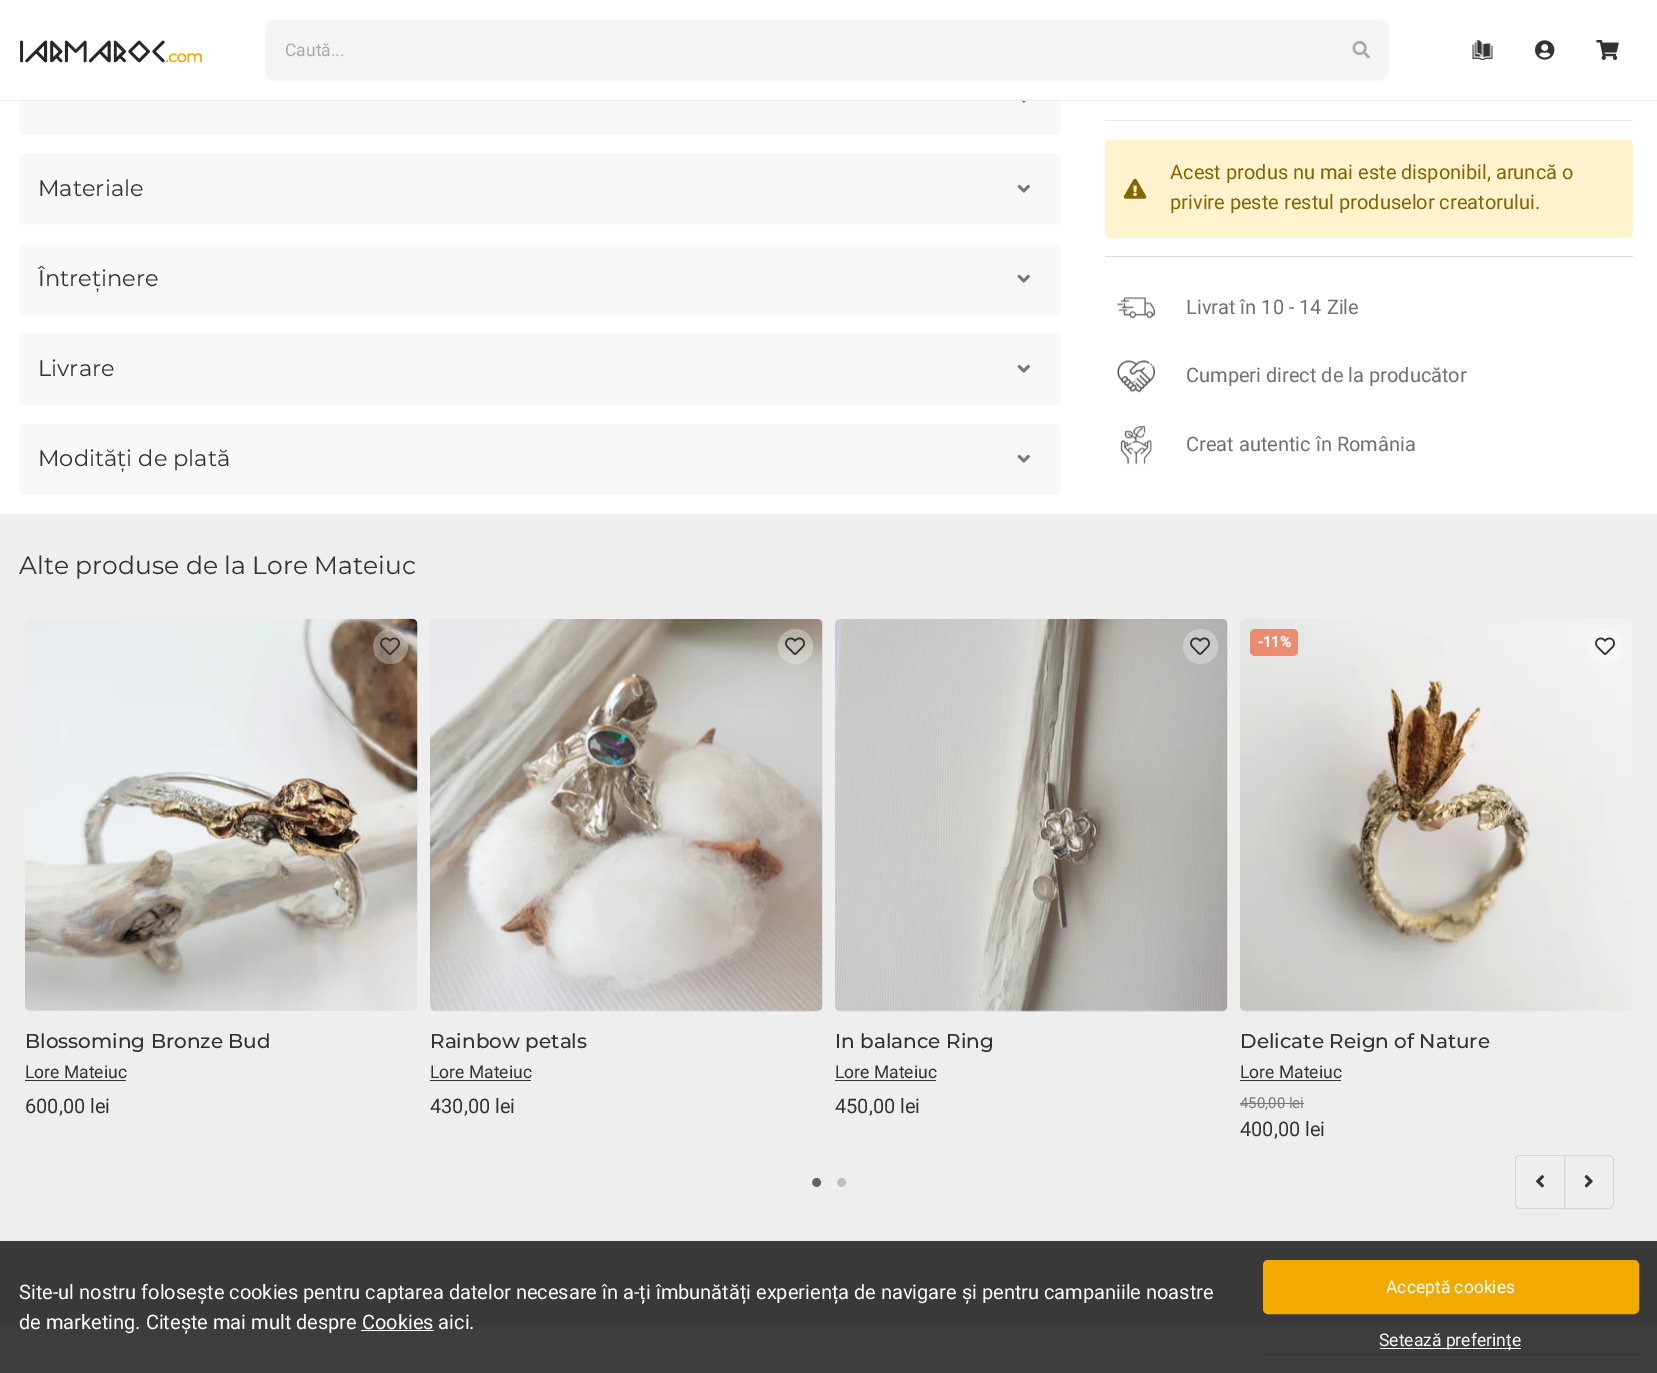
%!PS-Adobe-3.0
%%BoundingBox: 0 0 1657 1373
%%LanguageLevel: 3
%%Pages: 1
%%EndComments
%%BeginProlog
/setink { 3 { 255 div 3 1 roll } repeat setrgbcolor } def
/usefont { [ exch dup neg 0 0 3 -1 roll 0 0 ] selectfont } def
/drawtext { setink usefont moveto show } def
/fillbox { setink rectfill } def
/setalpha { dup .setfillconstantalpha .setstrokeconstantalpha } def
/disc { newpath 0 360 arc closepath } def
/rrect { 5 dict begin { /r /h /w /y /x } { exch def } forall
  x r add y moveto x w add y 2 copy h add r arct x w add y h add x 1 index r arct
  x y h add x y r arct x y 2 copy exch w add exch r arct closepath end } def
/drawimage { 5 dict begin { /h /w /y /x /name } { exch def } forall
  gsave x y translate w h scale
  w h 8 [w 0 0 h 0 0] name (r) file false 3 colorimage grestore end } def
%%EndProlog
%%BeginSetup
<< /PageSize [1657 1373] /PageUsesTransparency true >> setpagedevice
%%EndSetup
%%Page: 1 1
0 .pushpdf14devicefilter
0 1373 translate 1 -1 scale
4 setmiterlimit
0 0 1657 1373 255 255 255 fillbox
0 1325 1657 48 61 61 61 fillbox
248 248 248 setink
19 64 1042 71 5 rrect fill
19 64 1042 36 255 255 255 fillbox
0 100 1657 1 238 238 238 fillbox
(assets/img1.rgb) 20 40 182 23 drawimage
244 244 244 setink
265.5 19.5 1123 61 9.5 rrect gsave fill grestore
248 248 248 setink
stroke
(Caută...) 285 56 /Roboto-Regular 17.5 170 170 170 drawtext
(assets/img2.rgb) 1352 41 18 18 drawimage
(assets/img3.rgb) 1472 40 21 20 drawimage
(assets/img4.rgb) 1535 40 20 20 drawimage
(assets/img5.rgb) 1596 40 23 20 drawimage
(assets/img6.rgb) 1021 101 5 2 drawimage
248 248 248 setink
19 154 1042 71 5 rrect fill
(Materiale) 38 196 /Montserrat-Regular 22.5 51 51 51 drawtext
(assets/img7.rgb) 1017 184 13 9 drawimage
248 248 248 setink
19 244 1042 71 5 rrect fill
(Întreținere) 38 286 /Montserrat-Regular 22.5 51 51 51 drawtext
(assets/img7.rgb) 1017 274 13 9 drawimage
248 248 248 setink
19 334 1042 71 5 rrect fill
(Livrare) 38 376 /Montserrat-Regular 22.5 51 51 51 drawtext
(assets/img7.rgb) 1017 364 13 9 drawimage
248 248 248 setink
19 424 1042 71 5 rrect fill
(Modități de plată) 38 466 /Montserrat-Regular 22.5 51 51 51 drawtext
(assets/img7.rgb) 1017 454 13 9 drawimage
1105 120 528 1 229 231 233 fillbox
1105 256 528 1 218 220 224 fillbox
255 243 205 setink
1105 140 528 98 5 rrect fill
(assets/img8.rgb) 1123 178 24 21 drawimage
(Acest produs nu mai este disponibil, aruncă o) 1170 179 /Roboto-Regular 20 133 100 4 drawtext
(privire peste restul produselor creatorului.) 1170 209 /Roboto-Regular 20 133 100 4 drawtext
(assets/img9.rgb) 1117 297 38 22 drawimage
(Livrat în 10 - 14 Zile) 1186 314 /Roboto-Regular 20 112 112 112 drawtext
(assets/img10.rgb) 1117 360 38 33 drawimage
(Cumperi direct de la producător) 1186 382 /Roboto-Regular 20 112 112 112 drawtext
(assets/img11.rgb) 1120 426 32 39 drawimage
(Creat autentic în România) 1186 451 /Roboto-Regular 20 112 112 112 drawtext
0 514 1657 727 238 238 238 fillbox
0 1241 1657 84 58 57 57 fillbox
(Alte produse de la Lore Mateiuc) 19 574 /Montserrat-Regular 25 51 51 51 drawtext
(assets/img12.rgb) 25 618 393 393 drawimage
0.3 setalpha
255 255 255 setink
390.5 646.5 17.5 disc fill
1 setalpha
(assets/img13.rgb) 380 637 20 18 drawimage
(Blossoming Bronze Bud) 25 1048 /Montserrat-Medium 20 51 51 51 drawtext
(Lore Mateiuc) 25 1078 /Roboto-Regular 17.5 51 51 51 drawtext
25 1080 101 1 51 51 51 fillbox
(600,00 lei) 25 1113 /Roboto-Regular 20 51 51 51 drawtext
(assets/img14.rgb) 430 619 393 393 drawimage
0.3 setalpha
255 255 255 setink
795.5 646.5 17.5 disc fill
1 setalpha
(assets/img15.rgb) 785 637 20 18 drawimage
(Rainbow petals) 430 1048 /Montserrat-Medium 20 51 51 51 drawtext
(Lore Mateiuc) 430 1078 /Roboto-Regular 17.5 51 51 51 drawtext
430 1080 101 1 51 51 51 fillbox
(430,00 lei) 430 1113 /Roboto-Regular 20 51 51 51 drawtext
(assets/img16.rgb) 835 619 393 393 drawimage
0.3 setalpha
255 255 255 setink
1200.5 646.5 17.5 disc fill
1 setalpha
(assets/img17.rgb) 1190 637 20 18 drawimage
(In balance Ring) 835 1048 /Montserrat-Medium 20 51 51 51 drawtext
(Lore Mateiuc) 835 1078 /Roboto-Regular 17.5 51 51 51 drawtext
835 1080 101 1 51 51 51 fillbox
(450,00 lei) 835 1113 /Roboto-Regular 20 51 51 51 drawtext
(assets/img18.rgb) 1240 619 392 393 drawimage
0.5 setalpha
240 50 0 setink
1250 629 48 27 5 rrect fill
1 setalpha
(-11%) 1258 647 /Roboto-Bold 15 255 255 255 drawtext
246 247 246 setink
1605.5 646.5 17.5 disc fill
(assets/img19.rgb) 1595 637 20 18 drawimage
(Delicate Reign of Nature) 1240 1048 /Montserrat-Medium 20 51 51 51 drawtext
(Lore Mateiuc) 1240 1078 /Roboto-Regular 17.5 51 51 51 drawtext
1240 1080 101 1 51 51 51 fillbox
(450,00 lei) 1240 1108 /Roboto-Regular 15 119 119 119 drawtext
1240 1103 64 1 119 119 119 fillbox
(400,00 lei) 1240 1136 /Roboto-Regular 20 51 51 51 drawtext
(•) 810 1195 /LiberationSerif-Regular 38 98 98 98 drawtext
(•) 835 1195 /LiberationSerif-Regular 38 191 191 191 drawtext
214 214 214 setink
1520 1155 moveto 1564 1155 lineto 1564 1209 lineto 1520 1209 lineto 1517 1209 1515 1207 1515 1204 curveto 1515 1160 lineto 1515 1157 1517 1155 1520 1155 curveto closepath 1520 1156 moveto 1564 1156 lineto 1564 1208 lineto 1520 1208 lineto 1518 1208 1516 1206 1516 1204 curveto 1516 1160 lineto 1516 1158 1518 1156 1520 1156 curveto closepath eofill
(assets/img20.rgb) 1536 1175 8 13 drawimage
1564.5 1155.5 moveto 1609 1155.5 lineto 1611.5 1155.5 1613.5 1157.5 1613.5 1160 curveto 1613.5 1204 lineto 1613.5 1206.5 1611.5 1208.5 1609 1208.5 curveto 1564.5 1208.5 lineto closepath stroke
(assets/img21.rgb) 1584 1175 9 13 drawimage
(Site-ul nostru folosește cookies pentru captarea datelor necesare în a-ți îmbunătăți experiența de navigare și pentru campaniile noastre) 19 1299 /Roboto-Regular 20 255 255 255 drawtext
(de marketing. Citește mai mult despre Cookies aici.) 19 1329 /Roboto-Regular 20 255 255 255 drawtext
361 1330 73 1 255 255 255 fillbox
240 170 0 setink
1263.5 1260.5 375 53 4.5 rrect gsave fill grestore
stroke
(Acceptă cookies) 1386 1293 /Roboto-Regular 17.5 255 255 255 drawtext
51 51 51 setink
1639 1355 moveto 1262 1355 lineto 1264 1354 lineto 1638 1354 lineto closepath fill
1380 1348 141 1 255 255 255 fillbox
(Setează preferințe) 1379 1346 /Roboto-Regular 17.5 255 255 255 drawtext
.poppdf14devicefilter showpage
%%EOF
